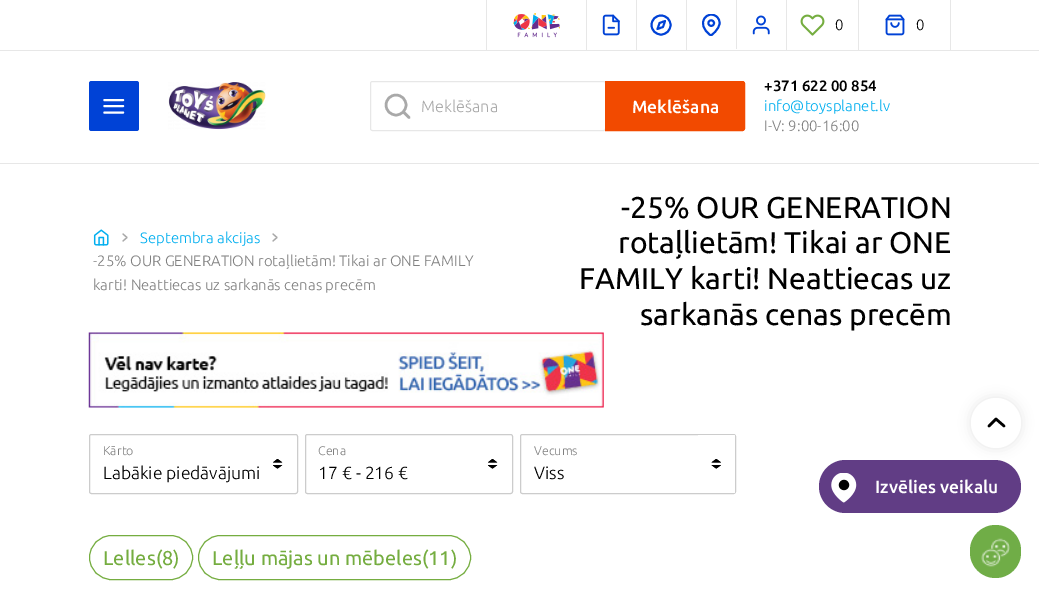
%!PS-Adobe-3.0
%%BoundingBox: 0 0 1039 589
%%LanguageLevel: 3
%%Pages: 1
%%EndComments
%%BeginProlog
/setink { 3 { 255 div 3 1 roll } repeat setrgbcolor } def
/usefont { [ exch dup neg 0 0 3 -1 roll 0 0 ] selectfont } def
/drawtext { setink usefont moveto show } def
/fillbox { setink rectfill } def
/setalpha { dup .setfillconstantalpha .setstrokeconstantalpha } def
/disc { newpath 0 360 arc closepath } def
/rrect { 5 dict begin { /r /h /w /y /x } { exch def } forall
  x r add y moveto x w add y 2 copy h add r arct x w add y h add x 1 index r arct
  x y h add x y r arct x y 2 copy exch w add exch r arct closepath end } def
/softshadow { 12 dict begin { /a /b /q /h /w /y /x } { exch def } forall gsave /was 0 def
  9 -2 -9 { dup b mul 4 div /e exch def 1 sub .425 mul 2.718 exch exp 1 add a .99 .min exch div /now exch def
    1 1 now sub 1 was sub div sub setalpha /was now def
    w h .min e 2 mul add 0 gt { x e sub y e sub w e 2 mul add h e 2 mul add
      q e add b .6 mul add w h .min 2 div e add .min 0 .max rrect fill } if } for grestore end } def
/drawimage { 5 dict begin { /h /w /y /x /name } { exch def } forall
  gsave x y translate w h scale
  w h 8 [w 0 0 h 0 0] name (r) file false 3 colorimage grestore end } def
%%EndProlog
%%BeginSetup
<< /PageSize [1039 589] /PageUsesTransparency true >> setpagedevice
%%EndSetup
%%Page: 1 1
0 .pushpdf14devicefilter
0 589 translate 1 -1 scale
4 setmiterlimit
0 0 1039 589 255 255 255 fillbox
0 50 1039 1 231 231 231 fillbox
486 0 1 50 231 231 231 fillbox
(assets/img1.rgb) 513 13 47 25 drawimage
586 0 1 50 231 231 231 fillbox
(assets/img2.rgb) 602 14 18 22 drawimage
636 0 1 50 231 231 231 fillbox
0 66 214 setink
1.9 setlinewidth
661 25 9.5 disc stroke
1 setlinecap
1 setlinejoin
665 21 moveto 663 27 lineto 657.5 29 lineto 659.5 23 lineto closepath stroke
686 0 1 50 231 231 231 fillbox
gsave
700 14 23 22 rectclip
0 66 214 setink
719.5 23 moveto 719.5 29.5 711 35.5 711 35.5 curveto 693.5 23.5 708.5 8.5 717 17 curveto 719 18.5 719.5 21 719.5 23 curveto closepath stroke
grestore
0 66 214 setink
0 setlinecap
0 setlinejoin
711.2 23.1 2.8 disc stroke
736 0 1 49 231 231 231 fillbox
(assets/img3.rgb) 752 15 18 20 drawimage
786 0 1 50 231 231 231 fillbox
(assets/img4.rgb) 800 14 25 22 drawimage
(0) 835 30 /Ubuntu-Light 15 0 0 0 drawtext
950 0 1 50 231 231 231 fillbox
858 0 1 50 231 231 231 fillbox
(assets/img5.rgb) 885 14 20 22 drawimage
(0) 916 30 /Ubuntu-Light 15 0 0 0 drawtext
0 66 214 setink
89 81 50 50 2.5 rrect fill
255 255 255 setink
2.1 setlinewidth
1 setlinecap
1 setlinejoin
104.5 106 moveto 123 106 lineto 104.5 100 moveto 123 100 lineto 104.5 112.5 moveto 123 112.5 lineto stroke
(assets/img6.rgb) 168 82 98 48 drawimage
231 231 231 setink
1 setlinewidth
0 setlinecap
0 setlinejoin
370.5 81.5 235 49 2 rrect stroke
169 169 169 setink
2.5 setlinewidth
396 105 10 disc stroke
1 setlinecap
1 setlinejoin
409 117.5 moveto 403.5 112 lineto stroke
(Meklēšana) 421 112 /Ubuntu-Light 16.25 169 169 169 drawtext
242 74 0 setink
605.5 81.5 moveto 742.5 81.5 lineto 743.5 81.5 744.5 82.5 744.5 83.5 curveto 744.5 128.5 lineto 744.5 129.5 743.5 130.5 742.5 130.5 curveto 605.5 130.5 lineto closepath gsave fill grestore
1 setlinewidth
0 setlinecap
0 setlinejoin
stroke
(Meklēšana) 632 113 /Ubuntu-Medium 17.5 255 255 255 drawtext
(+371 622 00 854) 764 91 /Ubuntu-Medium 15 0 0 0 drawtext
(info@toysplanet.lv) 764 111 /Ubuntu-Light 15 0 174 239 drawtext
(I-V: 9:00-16:00) 764 131 /Ubuntu-Light 15 128 128 128 drawtext
0 163 1039 1 231 231 231 fillbox
(assets/img7.rgb) 93 229 16 17 drawimage
169 169 169 setink
1.2 setlinewidth
1 setlinecap
1 setlinejoin
123 241 moveto 127 237.5 lineto 123 234 lineto stroke
(Septembra akcijas) 140 243 /Ubuntu-Light 15 0 174 239 drawtext
169 169 169 setink
273 241 moveto 277 237.5 lineto 273 234 lineto stroke
(-25% OUR GENERATION rotaļlietām! Tikai ar ONE FAMILY) 93 266 /Ubuntu-Light 15 128 128 128 drawtext
(karti! Neattiecas uz sarkanās cenas precēm) 93 290 /Ubuntu-Light 15 128 128 128 drawtext
(-25% OUR GENERATION) 621 218 /Ubuntu-Regular 30 0 0 0 drawtext
(rotaļlietām! Tikai ar ONE) 618 253 /Ubuntu-Regular 30 0 0 0 drawtext
(FAMILY karti! Neattiecas uz) 579 289 /Ubuntu-Regular 30 0 0 0 drawtext
(sarkanās cenas precēm) 640 325 /Ubuntu-Regular 30 0 0 0 drawtext
(assets/img8.rgb) 88 332 516 76 drawimage
204 204 204 setink
1 setlinewidth
0 setlinecap
0 setlinejoin
89.5 434.5 208 59 2 rrect stroke
(Kārto) 103 455 /Ubuntu-Light 12.5 128 128 128 drawtext
(assets/img9.rgb) 273 459 10 10 drawimage
(Labākie piedāvājumi) 103 479 /Ubuntu-Light 17.5 0 0 0 drawtext
204 204 204 setink
305.5 434.5 207 59 2 rrect stroke
(Cena) 318 455 /Ubuntu-Light 12.5 128 128 128 drawtext
(assets/img9.rgb) 488 459 10 10 drawimage
(17 € - 216 €) 318 479 /Ubuntu-Light 17.5 0 0 0 drawtext
204 204 204 setink
520.5 434.5 215 59 2 rrect stroke
(Vecums) 534 455 /Ubuntu-Light 12.5 128 128 128 drawtext
255 255 255 setink
698 435 moveto 734 435 lineto 734.5 435 735 435.5 735 436 curveto 735 492 lineto 735 492.5 734.5 493 734 493 curveto 698 493 lineto closepath fill
(assets/img10.rgb) 711 459 10 10 drawimage
(Viss) 534 479 /Ubuntu-Light 17.5 0 0 0 drawtext
117 173 64 setink
89.5 535.5 103 44 22 rrect stroke
(Lelles\(8\)) 103 565 /Ubuntu-Regular 20 117 173 64 drawtext
198.5 535.5 272 44 22 rrect stroke
(Leļļu mājas un mēbeles\(11\)) 212 565 /Ubuntu-Regular 20 117 173 64 drawtext
0 0 0 setink
971 398 50 50 25 6 0.1 softshadow
255 255 255 setink
996 423 25 disc fill
0 0 0 setink
2.5 setlinewidth
1 setlinecap
1 setlinejoin
1004 426 moveto 996 419 lineto 989 426 lineto stroke
97 61 133 setink
819 460 202 53 26.5 rrect fill
(assets/img11.rgb) 831 473 26 30 drawimage
(Izvēlies veikalu) 875 493 /Ubuntu-Medium 17.5 255 255 255 drawtext
112 173 71 setink
970 525 51 53 25.5 rrect fill
(assets/img12.rgb) 981 538 29 29 drawimage
.poppdf14devicefilter showpage
%%EOF
